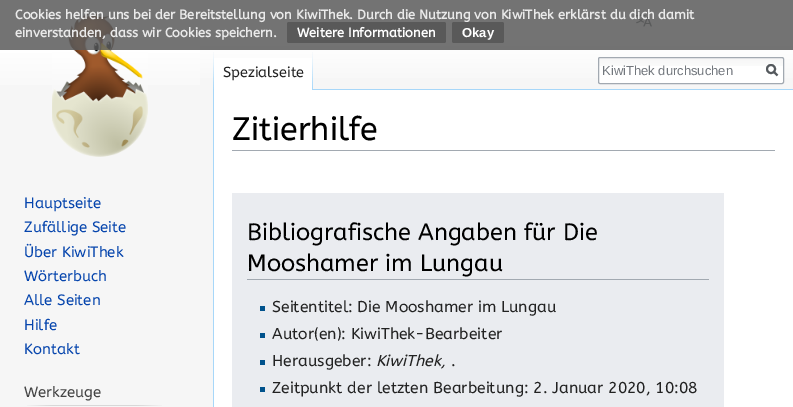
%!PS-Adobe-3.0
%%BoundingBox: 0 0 793 407
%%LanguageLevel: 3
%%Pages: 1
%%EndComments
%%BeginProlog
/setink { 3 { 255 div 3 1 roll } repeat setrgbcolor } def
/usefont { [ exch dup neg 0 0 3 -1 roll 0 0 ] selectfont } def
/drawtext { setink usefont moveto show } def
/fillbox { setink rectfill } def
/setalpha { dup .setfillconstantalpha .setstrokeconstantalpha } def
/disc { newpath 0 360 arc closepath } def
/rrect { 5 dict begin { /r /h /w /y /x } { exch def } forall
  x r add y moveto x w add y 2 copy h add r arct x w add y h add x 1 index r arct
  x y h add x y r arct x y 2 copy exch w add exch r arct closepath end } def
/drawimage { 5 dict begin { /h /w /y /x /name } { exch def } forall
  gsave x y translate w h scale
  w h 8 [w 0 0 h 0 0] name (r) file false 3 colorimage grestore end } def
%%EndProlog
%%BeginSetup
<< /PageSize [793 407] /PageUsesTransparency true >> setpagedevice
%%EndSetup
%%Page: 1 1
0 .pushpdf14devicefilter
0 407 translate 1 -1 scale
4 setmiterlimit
0 0 793 407 246 246 246 fillbox
gsave 200 0 moveto 793 0 lineto 793 78 lineto 200 78 lineto closepath clip newpath
<< /ShadingType 2 /ColorSpace /DeviceRGB /Coords [397 0 397 90] /Extend [true true] /Function << /FunctionType 3 /Domain [0 1] /Functions [<< /FunctionType 2 /Domain [0 1] /C0 [1 1 1] /C1 [1 1 1] /N 1 >> << /FunctionType 2 /Domain [0 1] /C0 [1 1 1] /C1 [0.965 0.965 0.965] /N 1 >>] /Bounds [0.5] /Encode [0 1 0 1] >> >> shfill grestore
(assets/img1.rgb) 636 13 16 14 drawimage
gsave 0 0 moveto 200 0 lineto 200 85 lineto 0 85 lineto closepath clip newpath
<< /ShadingType 2 /ColorSpace /DeviceRGB /Coords [100 0 100 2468] /Extend [true true] /Function << /FunctionType 3 /Domain [0 1] /Functions [<< /FunctionType 2 /Domain [0 1] /C0 [1 1 1] /C1 [1 1 1] /N 1 >> << /FunctionType 2 /Domain [0 1] /C0 [1 1 1] /C1 [0.965 0.965 0.965] /N 1 >> << /FunctionType 2 /Domain [0 1] /C0 [0.965 0.965 0.965] /C1 [0.965 0.965 0.965] /N 1 >>] /Bounds [0.02 0.04] /Encode [0 1 0 1 0 1] >> >> shfill grestore
(assets/img5.rgb) 52 13 96 144 drawimage
0.85 setalpha
0 0 793 50 90 90 90 fillbox
1 setalpha
(Cookies helfen uns bei der Bereitstellung von KiwiThek. Durch die Nutzung von KiwiThek erklärst du dich damit) 15 19 /ABeeZee-Bold 13 234 234 234 drawtext
(einverstanden, dass wir Cookies speichern.) 15 37 /ABeeZee-Bold 13 234 234 234 drawtext
89 89 89 setink
287 22 159 21 2 rrect fill
(Weitere Informationen) 297 37 /ABeeZee-Bold 13 255 255 255 drawtext
89 89 89 setink
452 22 52 21 2 rrect fill
(Okay) 462 37 /LiberationSans-Bold 13 255 255 255 drawtext
(assets/img2.rgb) 213 52 1 37 drawimage
214 58 98 32 255 255 255 fillbox
(assets/img3.rgb) 312 52 1 38 drawimage
(Spezialseite) 223 77 /ABeeZee-Regular 14.5 34 34 34 drawtext
255 255 255 setink
598 57 186 27 2 rrect fill
(assets/img4.rgb) 598 58 186 8 drawimage
162 169 177 setink
598.5 57.5 185 26 1.5 rrect stroke
(KiwiThek durchsuchen) 602 75 /LiberationSans-Regular 13 114 119 125 drawtext
84 89 93 setink
2 setlinewidth
777.5 75.5 moveto 773.5 71.5 lineto stroke
771 69 4 disc stroke
(Hauptseite) 24 208 /ABeeZee-Regular 15 6 69 173 drawtext
(Zufällige Seite) 24 232 /ABeeZee-Regular 15 6 69 173 drawtext
(Über KiwiThek) 24 257 /ABeeZee-Regular 15 6 69 173 drawtext
(Wörterbuch) 24 281 /ABeeZee-Regular 15 6 69 173 drawtext
(Alle Seiten) 24 305 /ABeeZee-Regular 15 6 69 173 drawtext
(Hilfe) 24 330 /ABeeZee-Regular 15 6 69 173 drawtext
(Kontakt) 24 354 /ABeeZee-Regular 15 6 69 173 drawtext
(Werkzeuge) 24 397 /ABeeZee-Regular 15 68 68 68 drawtext
(assets/img6.rgb) 27 405 135 1 drawimage
214 90 579 317 255 255 255 fillbox
313 89 480 1 167 215 249 fillbox
213 89 1 318 167 215 249 fillbox
232 150 543 1 162 169 177 fillbox
(Zitierhilfe) 232 140 /ABeeZee-Regular 32.5 0 0 0 drawtext
232 193 492 214 234 236 240 fillbox
247 279 462 1 162 169 177 fillbox
(Bibliografische Angaben für Die) 247 240 /ABeeZee-Regular 23.6 0 0 0 drawtext
(Mooshamer im Lungau) 247 271 /ABeeZee-Regular 23.6 0 0 0 drawtext
260 306 5 5 0 82 140 fillbox
(Seitentitel: Die Mooshamer im Lungau) 272 312 /ABeeZee-Regular 15.75 34 34 34 drawtext
260 333 5 5 0 82 140 fillbox
(Autor\(en\): KiwiThek-Bearbeiter) 272 339 /ABeeZee-Regular 15.75 34 34 34 drawtext
260 360 5 5 0 82 140 fillbox
(Herausgeber:) 272 366 /ABeeZee-Regular 15.75 34 34 34 drawtext
(KiwiThek,) 376 366 /ABeeZee-Italic 15.75 34 34 34 drawtext
(.) 451 366 /ABeeZee-Regular 15.75 34 34 34 drawtext
260 387 5 5 0 82 140 fillbox
(Zeitpunkt der letzten Bearbeitung: 2. Januar 2020, 10:08) 272 393 /ABeeZee-Regular 15.75 34 34 34 drawtext
.poppdf14devicefilter showpage
%%EOF
